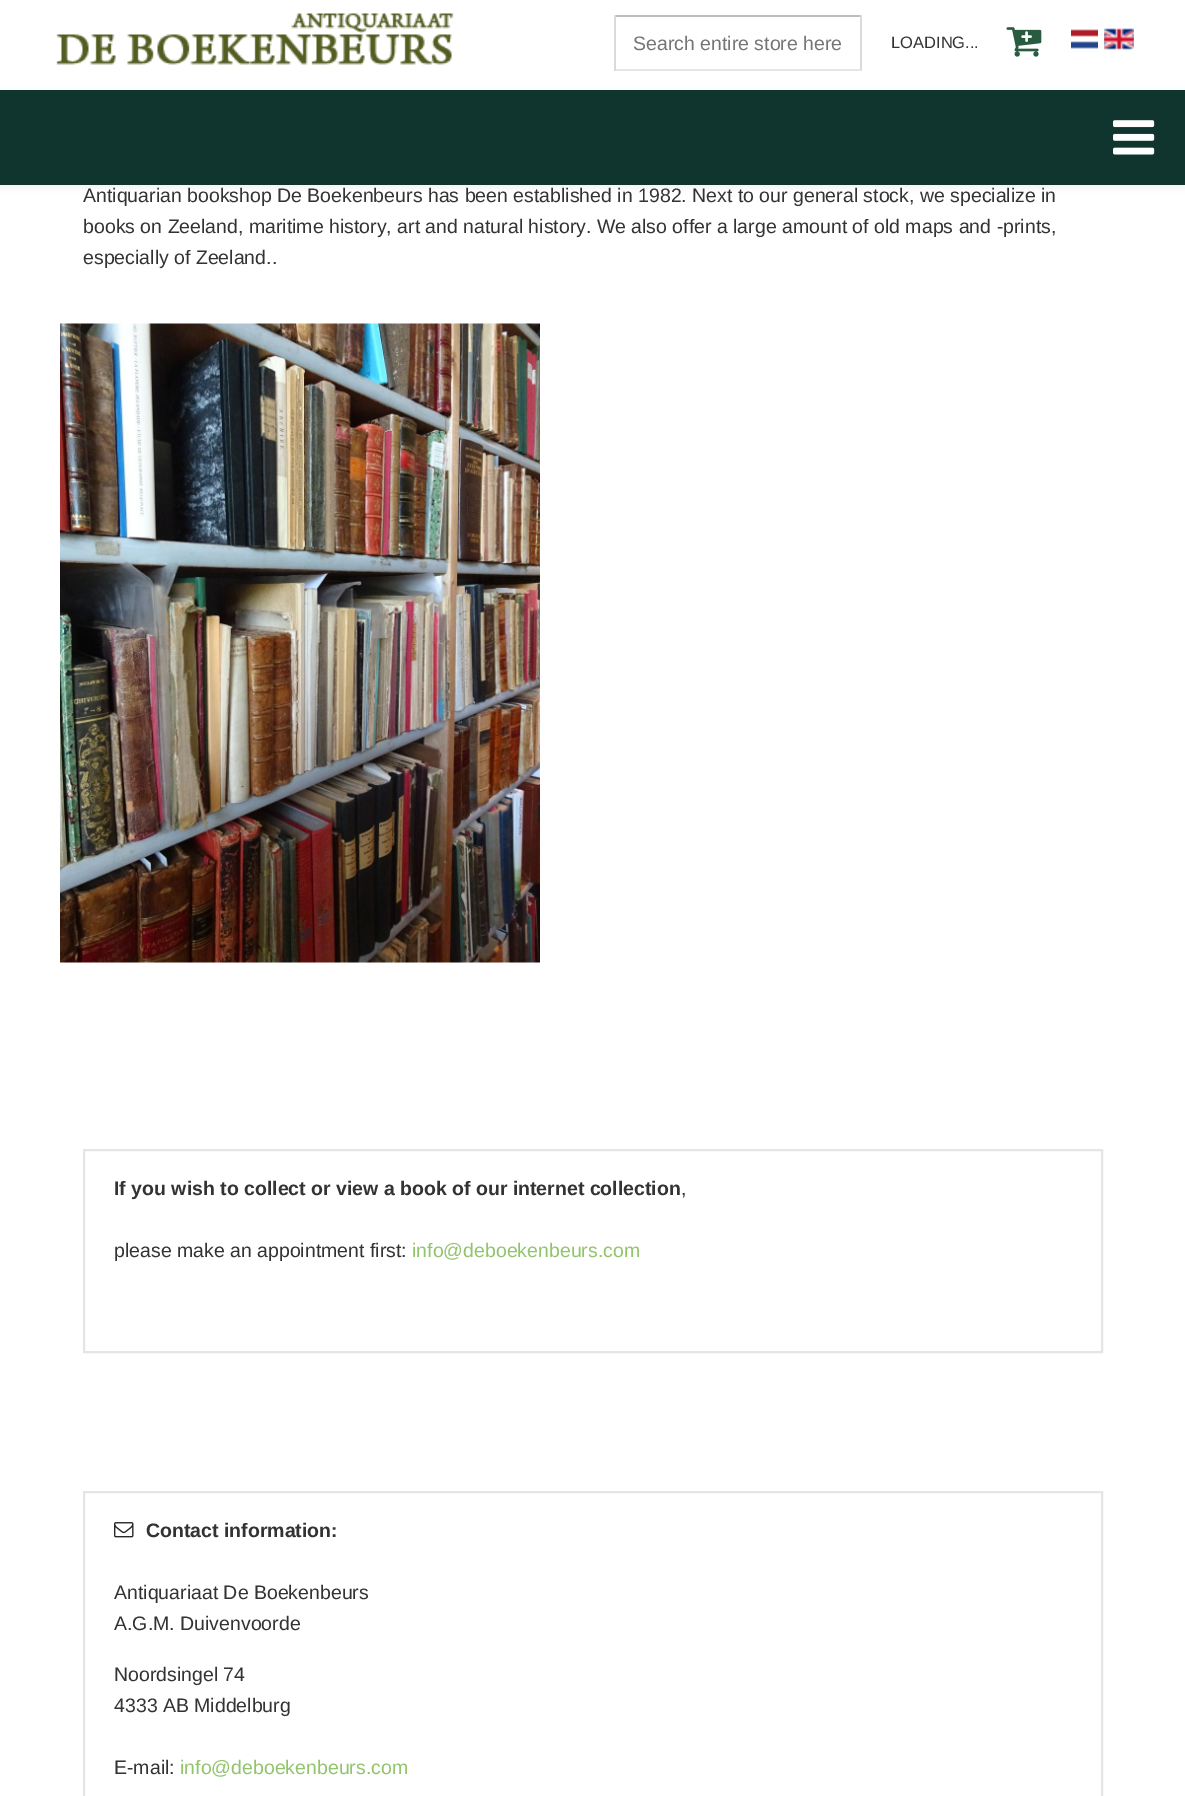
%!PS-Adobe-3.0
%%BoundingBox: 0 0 1185 1796
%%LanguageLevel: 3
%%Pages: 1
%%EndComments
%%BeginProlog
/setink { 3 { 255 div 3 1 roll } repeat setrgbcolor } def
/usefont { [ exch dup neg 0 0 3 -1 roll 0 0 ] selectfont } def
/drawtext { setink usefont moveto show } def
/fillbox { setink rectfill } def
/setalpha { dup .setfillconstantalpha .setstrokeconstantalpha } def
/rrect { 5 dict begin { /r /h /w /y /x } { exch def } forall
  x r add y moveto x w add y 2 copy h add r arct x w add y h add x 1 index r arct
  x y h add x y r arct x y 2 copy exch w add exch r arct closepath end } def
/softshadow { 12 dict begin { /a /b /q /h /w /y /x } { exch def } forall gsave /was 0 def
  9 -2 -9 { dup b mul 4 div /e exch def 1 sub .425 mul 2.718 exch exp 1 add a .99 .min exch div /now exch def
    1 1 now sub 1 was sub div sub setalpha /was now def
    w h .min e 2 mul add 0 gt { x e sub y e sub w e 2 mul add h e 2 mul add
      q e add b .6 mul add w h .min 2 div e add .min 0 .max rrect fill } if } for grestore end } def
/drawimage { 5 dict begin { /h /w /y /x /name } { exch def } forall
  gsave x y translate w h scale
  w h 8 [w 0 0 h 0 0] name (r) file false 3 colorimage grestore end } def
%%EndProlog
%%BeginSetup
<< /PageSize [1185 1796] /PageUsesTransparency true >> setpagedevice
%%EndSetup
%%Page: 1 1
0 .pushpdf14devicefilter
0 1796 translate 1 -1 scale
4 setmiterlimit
0 0 1185 1796 255 255 255 fillbox
0 0 0 setink
0 93 1185 95 0 4 0.06 softshadow
5 89 1175 1 255 255 255 fillbox
(assets/img1.rgb) 56 13 398 52 drawimage
614 15 247 2 188 188 188 fillbox
860 15 2 56 218 218 218 fillbox
614 69 247 2 229 229 229 fillbox
614 15 2 56 218 218 218 fillbox
(Search entire store here) 633 50 /LiberationSans-Regular 19.5 117 117 117 drawtext
(LOADING...) 891 48 /LiberationSans-Regular 16.5 51 51 51 drawtext
(assets/img2.rgb) 1006 27 36 30 drawimage
(assets/img3.rgb) 1071 29 27 20 drawimage
(assets/img4.rgb) 1104 28 30 22 drawimage
0 90 1185 95 15 53 46 fillbox
(assets/img5.rgb) 1113 120 42 35 drawimage
(Antiquarian bookshop De Boekenbeurs has been established in 1982. Next to our general stock, we specialize in) 83 202 /LiberationSans-Regular 19.5 51 51 51 drawtext
(books on Zeeland, maritime history, art and natural history. We also offer a large amount of old maps and -prints,) 83 233 /LiberationSans-Regular 19.5 51 51 51 drawtext
(especially of Zeeland..) 83 264 /LiberationSans-Regular 19.5 51 51 51 drawtext
(assets/img6.rgb) 60 323 480 640 drawimage
229 229 229 setink
2 setlinewidth
84 1150 1018 202 rectstroke
(If you wish to collect or view a book of our internet collection) 114 1195 /LiberationSans-Bold 19.5 51 51 51 drawtext
(,) 681 1195 /LiberationSans-Regular 19.5 51 51 51 drawtext
(please make an appointment first:) 114 1257 /LiberationSans-Regular 19.5 51 51 51 drawtext
(info@deboekenbeurs.com) 412 1257 /LiberationSans-Regular 19.5 145 196 108 drawtext
229 229 229 setink
84 1492 1018 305 rectstroke
(assets/img7.rgb) 114 1522 20 16 drawimage
(Contact information:) 146 1537 /LiberationSans-Bold 19.5 51 51 51 drawtext
(Antiquariaat De Boekenbeurs) 114 1599 /LiberationSans-Regular 19.5 51 51 51 drawtext
(A.G.M. Duivenvoorde) 114 1630 /LiberationSans-Regular 19.5 51 51 51 drawtext
(Noordsingel 74) 114 1681 /LiberationSans-Regular 19.5 51 51 51 drawtext
(4333 AB Middelburg) 114 1712 /LiberationSans-Regular 19.5 51 51 51 drawtext
(E-mail:) 114 1774 /LiberationSans-Regular 19.5 51 51 51 drawtext
(info@deboekenbeurs.com) 180 1774 /LiberationSans-Regular 19.5 145 196 108 drawtext
.poppdf14devicefilter showpage
%%EOF
